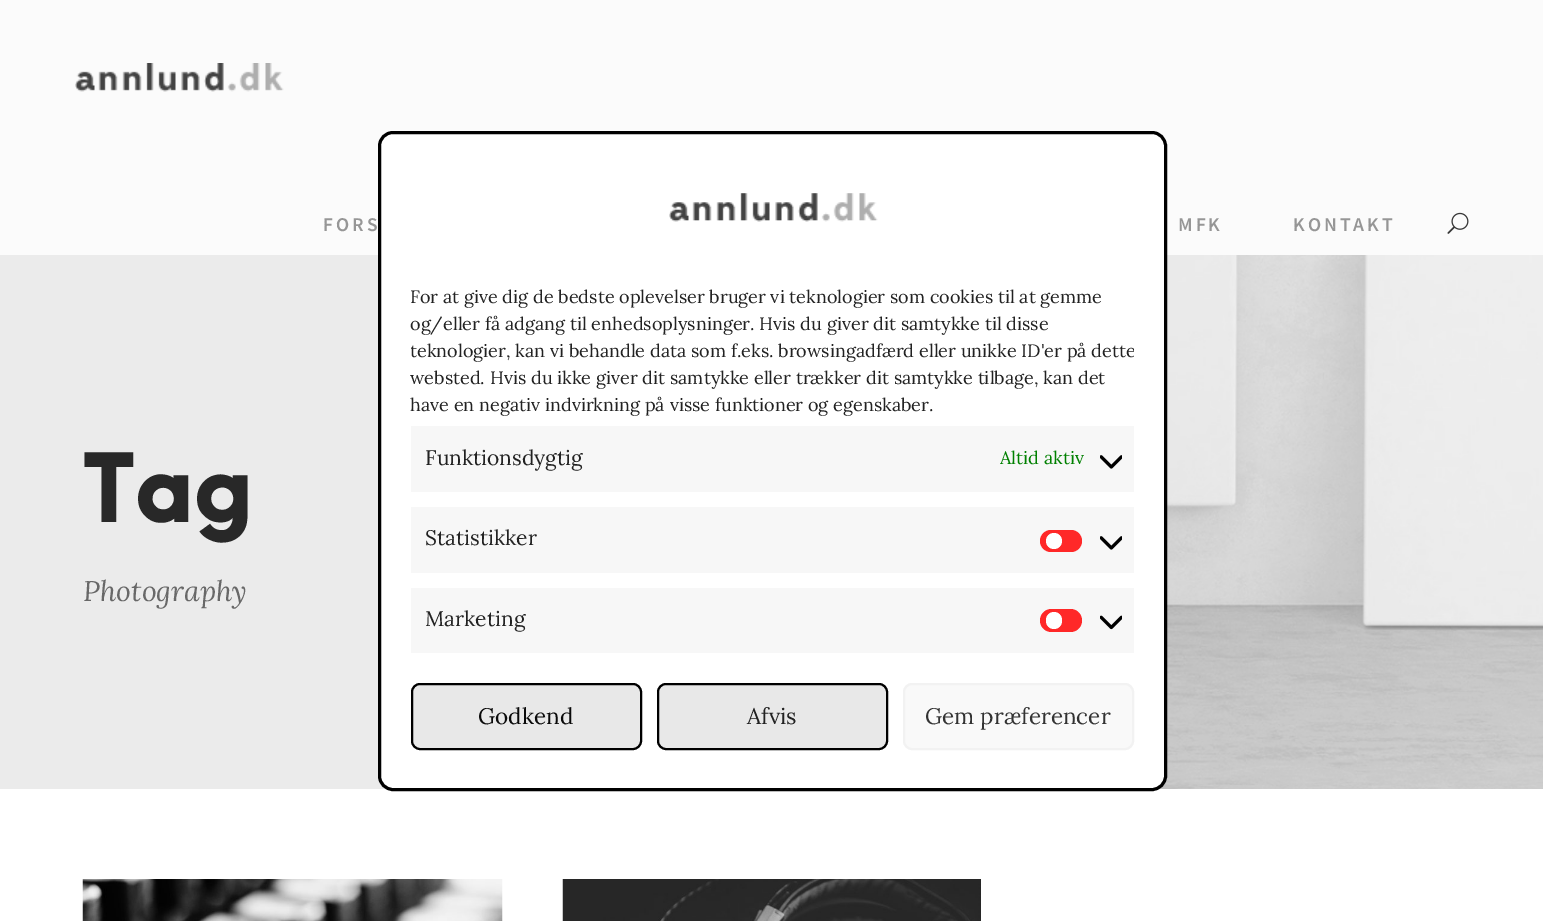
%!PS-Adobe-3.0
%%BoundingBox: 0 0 1543 921
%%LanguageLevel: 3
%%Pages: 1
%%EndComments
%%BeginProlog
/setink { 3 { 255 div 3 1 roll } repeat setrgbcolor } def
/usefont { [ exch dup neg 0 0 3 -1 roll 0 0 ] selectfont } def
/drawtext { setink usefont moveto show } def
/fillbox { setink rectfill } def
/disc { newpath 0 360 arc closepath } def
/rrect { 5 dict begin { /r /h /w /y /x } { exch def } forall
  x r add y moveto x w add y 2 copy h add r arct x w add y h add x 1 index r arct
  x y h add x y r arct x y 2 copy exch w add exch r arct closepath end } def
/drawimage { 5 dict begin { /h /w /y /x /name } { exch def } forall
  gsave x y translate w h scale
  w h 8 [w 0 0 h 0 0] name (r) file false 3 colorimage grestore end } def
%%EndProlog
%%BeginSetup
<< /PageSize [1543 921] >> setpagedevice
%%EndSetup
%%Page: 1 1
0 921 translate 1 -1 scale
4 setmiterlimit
0 0 1543 921 255 255 255 fillbox
0 0 1543 255 251 251 251 fillbox
(assets/img1.rgb) 75 63 209 29 drawimage
/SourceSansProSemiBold-SemiBold 19.5 usefont
150 150 150 setink
323 231 moveto 3 0 (FORS) ashow
1178 231 moveto 3 0 (MFK) ashow
1293 231 moveto 3 0 (KONTAKT) ashow
(assets/img2.rgb) 1447 212 22 22 drawimage
(assets/img3.rgb) 0 255 1543 534 drawimage
(Tag) 83 522 /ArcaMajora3-Black 86 40 40 40 drawtext
(Photography) 83 601 /Lora-Italic 28.5 104 104 104 drawtext
(assets/img4.rgb) 82 879 421 42 drawimage
(assets/img5.rgb) 562 879 419 42 drawimage
255 255 255 setink
379.5 132.5 786 657 13.5 rrect gsave fill grestore
0 0 0 setink
3 setlinewidth
stroke
(assets/img6.rgb) 669 193 209 29 drawimage
(For at give dig de bedste oplevelser bruger vi teknologier som cookies til at gemme) 410 303 /Lora-Regular 18 34 34 34 drawtext
(og/eller få adgang til enhedsoplysninger. Hvis du giver dit samtykke til disse) 410 330 /Lora-Regular 18 34 34 34 drawtext
gsave
411 186 723 467 rectclip
(teknologier, kan vi behandle data som f.eks. browsingadfærd eller unikke ID'er på dette) 410 357 /Lora-Regular 18 34 34 34 drawtext
grestore
(websted. Hvis du ikke giver dit samtykke eller trækker dit samtykke tilbage, kan det) 410 384 /Lora-Regular 18 34 34 34 drawtext
(have en negativ indvirkning på visse funktioner og egenskaber.) 410 411 /Lora-Regular 18 34 34 34 drawtext
411 426 723 66 247 247 247 fillbox
(Funktionsdygtig) 425 465 /Lora-Regular 21 34 34 34 drawtext
(Altid aktiv) 1000 464 /Lora-Regular 18 0 128 0 drawtext
(assets/img7.rgb) 1100 455 22 14 drawimage
411 507 723 66 247 247 247 fillbox
(Statistikker) 425 545 /Lora-Regular 21 34 34 34 drawtext
255 40 40 setink
1040 530 42 22 11 rrect fill
255 255 255 setink
1054 541 8 disc fill
(assets/img7.rgb) 1100 536 22 14 drawimage
411 588 723 65 247 247 247 fillbox
(Marketing) 425 626 /Lora-Regular 21 34 34 34 drawtext
255 40 40 setink
1040 609 42 23 11.5 rrect fill
255 255 255 setink
1046 612 16 17 8 rrect fill
(assets/img8.rgb) 1100 615 22 15 drawimage
232 232 232 setink
412 684 229 65 8 rrect gsave fill grestore
0 0 0 setink
2 setlinewidth
stroke
(Godkend) 478 724 /Lora-Regular 22.5 10 10 10 drawtext
232 232 232 setink
658 684 229 65 8 rrect gsave fill grestore
0 0 0 setink
stroke
(Afvis) 747 724 /Lora-Regular 22.5 34 34 34 drawtext
249 249 249 setink
904 684 229 65 8 rrect gsave fill grestore
242 242 242 setink
stroke
(Gem præferencer) 925 724 /Lora-Regular 22.5 51 51 51 drawtext
showpage
%%EOF
